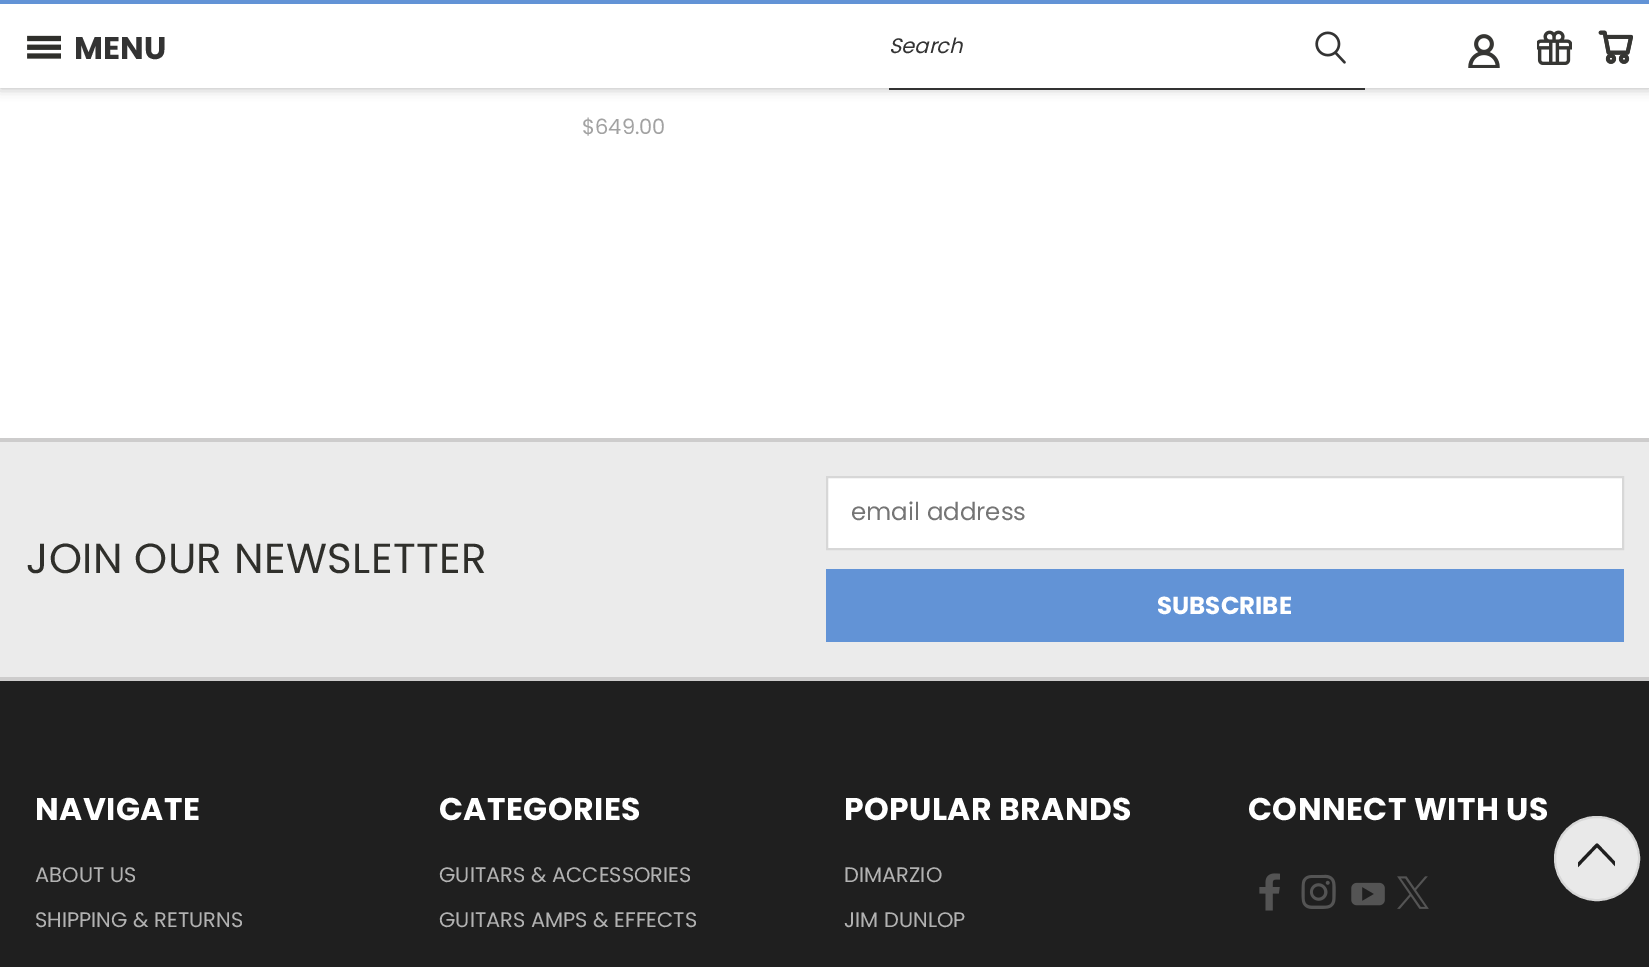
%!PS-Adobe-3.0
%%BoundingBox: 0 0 1649 967
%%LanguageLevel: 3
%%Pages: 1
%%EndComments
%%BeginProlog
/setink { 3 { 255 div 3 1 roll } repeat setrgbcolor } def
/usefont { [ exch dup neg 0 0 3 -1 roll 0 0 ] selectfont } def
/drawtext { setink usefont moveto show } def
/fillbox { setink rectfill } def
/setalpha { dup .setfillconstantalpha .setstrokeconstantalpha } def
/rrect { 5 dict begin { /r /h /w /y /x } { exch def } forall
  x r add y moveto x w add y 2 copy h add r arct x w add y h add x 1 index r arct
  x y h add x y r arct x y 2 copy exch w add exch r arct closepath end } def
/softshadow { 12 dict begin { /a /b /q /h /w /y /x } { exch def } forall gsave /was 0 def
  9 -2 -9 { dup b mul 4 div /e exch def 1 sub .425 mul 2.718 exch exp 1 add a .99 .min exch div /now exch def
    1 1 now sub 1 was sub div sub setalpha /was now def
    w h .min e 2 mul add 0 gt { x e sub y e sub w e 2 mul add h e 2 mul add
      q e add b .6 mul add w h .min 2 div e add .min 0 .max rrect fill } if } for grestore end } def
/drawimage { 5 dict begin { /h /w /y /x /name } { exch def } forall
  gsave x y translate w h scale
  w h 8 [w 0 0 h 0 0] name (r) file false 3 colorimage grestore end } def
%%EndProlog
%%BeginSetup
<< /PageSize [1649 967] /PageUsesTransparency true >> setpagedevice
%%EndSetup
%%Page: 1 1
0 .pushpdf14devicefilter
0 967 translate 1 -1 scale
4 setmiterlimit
0 0 1649 967 255 255 255 fillbox
0 0 0 setink
0 0 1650 88 0 6 0.3 softshadow
0 4 1649 84 255 255 255 fillbox
0 0 1649 4 98 147 214 fillbox
(assets/img1.rgb) 27 35 34 24 drawimage
(MENU) 74 59 /Poppins-Bold 31.5 51 51 51 drawtext
889 88 476 2 51 51 51 fillbox
(Search) 889 53 /Poppins-Italic 21 51 51 51 drawtext
(assets/img2.rgb) 1315 31 31 33 drawimage
(assets/img3.rgb) 1468 34 32 34 drawimage
(assets/img4.rgb) 1537 30 35 35 drawimage
(assets/img5.rgb) 1598 30 35 34 drawimage
($649.00) 582 134 /Poppins-Regular 21 162 162 162 drawtext
0 442 1649 235 235 235 235 fillbox
0 438 1649 4 205 204 204 fillbox
/Poppins-Regular 42 usefont
47 47 43 setink
26 573 moveto 0.4 0 (JOIN OUR NEWSLETTER) ashow
255 255 255 setink
827 477 moveto 1623 477 lineto 1623 549 lineto 827 549 lineto closepath gsave fill grestore
215 215 215 setink
2 setlinewidth
stroke
(email address) 851 520 /Poppins-Regular 24.5 117 117 117 drawtext
826 569 798 73 98 147 214 fillbox
(SUBSCRIBE) 1157 614 /Poppins-Bold 24.5 255 255 255 drawtext
0 681 1649 286 31 31 31 fillbox
0 677 1649 4 205 204 204 fillbox
/Poppins-Bold 31.5 usefont
255 255 255 setink
35 820 moveto 0.4 0 (NAVIGATE) ashow
(ABOUT US) 35 882 /Poppins-Regular 21 178 178 178 drawtext
(SHIPPING & RETURNS) 35 927 /Poppins-Regular 21 178 178 178 drawtext
/Poppins-Bold 31.5 usefont
255 255 255 setink
439 820 moveto 0.4 0 (CATEGORIES) ashow
(GUITARS & ACCESSORIES) 439 882 /Poppins-Regular 21 178 178 178 drawtext
(GUITARS AMPS & EFFECTS) 439 927 /Poppins-Regular 21 178 178 178 drawtext
/Poppins-Bold 31.5 usefont
255 255 255 setink
844 820 moveto 0.4 0 (POPULAR BRANDS) ashow
(DIMARZIO) 844 882 /Poppins-Regular 21 178 178 178 drawtext
(JIM DUNLOP) 844 927 /Poppins-Regular 21 178 178 178 drawtext
/Poppins-Bold 31.5 usefont
255 255 255 setink
1248 820 moveto 0.4 0 (CONNECT WITH US) ashow
(assets/img6.rgb) 1259 873 21 38 drawimage
(assets/img7.rgb) 1301 874 35 35 drawimage
(assets/img8.rgb) 1351 882 34 24 drawimage
(assets/img9.rgb) 1397 876 32 33 drawimage
233 233 233 setink
1555 817 84 83 41.5 rrect gsave fill grestore
215 215 215 setink
stroke
gsave
1615 842.5 moveto 1615 879.5 lineto 1578.5 879.5 lineto 1578.5 842.5 lineto closepath clip newpath
31 31 31 setink
3.1 setlinewidth
1 setlinecap
1 setlinejoin
1627.5 877 moveto 1597 845 lineto 1566.5 877 lineto stroke
grestore
.poppdf14devicefilter showpage
%%EOF
